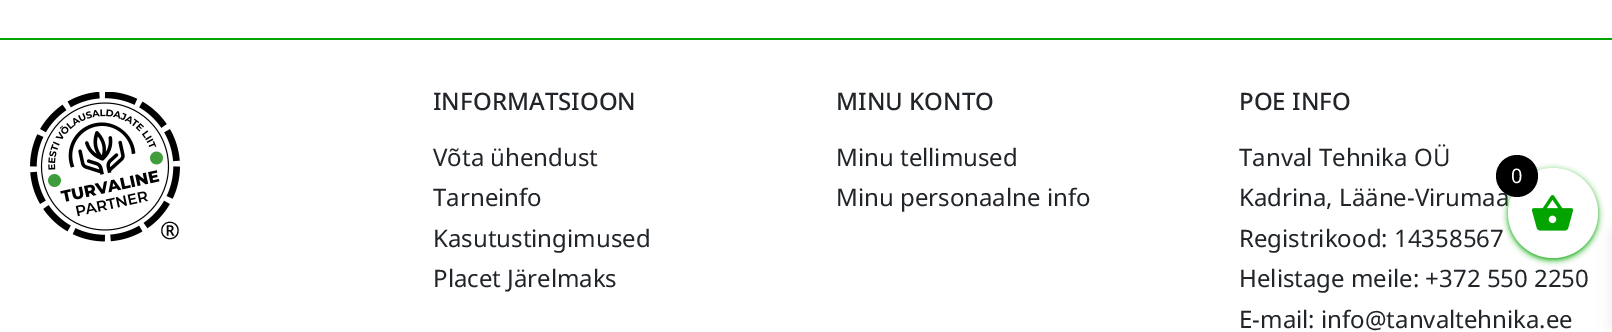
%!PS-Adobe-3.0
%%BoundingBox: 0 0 1612 332
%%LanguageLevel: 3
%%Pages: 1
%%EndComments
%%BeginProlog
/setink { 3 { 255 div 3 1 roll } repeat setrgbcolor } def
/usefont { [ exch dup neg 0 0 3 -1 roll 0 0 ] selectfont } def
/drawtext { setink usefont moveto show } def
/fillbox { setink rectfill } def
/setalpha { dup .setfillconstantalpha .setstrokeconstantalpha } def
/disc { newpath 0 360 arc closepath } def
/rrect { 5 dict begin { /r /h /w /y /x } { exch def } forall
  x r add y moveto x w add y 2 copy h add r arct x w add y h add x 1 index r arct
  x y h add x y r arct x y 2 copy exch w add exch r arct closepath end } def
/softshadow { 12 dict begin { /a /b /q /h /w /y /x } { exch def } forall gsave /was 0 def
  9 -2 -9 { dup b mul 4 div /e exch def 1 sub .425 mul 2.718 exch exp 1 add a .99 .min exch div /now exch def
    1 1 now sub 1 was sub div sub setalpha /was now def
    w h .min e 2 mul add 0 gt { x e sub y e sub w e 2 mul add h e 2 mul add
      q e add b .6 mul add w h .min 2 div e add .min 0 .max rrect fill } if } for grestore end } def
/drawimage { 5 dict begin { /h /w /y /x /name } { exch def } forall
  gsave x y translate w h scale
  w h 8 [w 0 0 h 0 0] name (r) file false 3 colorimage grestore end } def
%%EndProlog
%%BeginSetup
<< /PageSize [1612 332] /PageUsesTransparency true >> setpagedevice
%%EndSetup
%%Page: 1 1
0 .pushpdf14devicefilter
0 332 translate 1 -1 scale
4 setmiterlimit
0 0 1612 332 255 255 255 fillbox
0 38 1612 2 3 163 0 fillbox
(assets/img1.rgb) 30 92 150 150 drawimage
(®) 160 239 /NotoSans-Regular 24 0 0 0 drawtext
(INFORMATSIOON) 433 110 /NotoSans-Medium 24 33 37 41 drawtext
(Võta ühendust) 433 166 /NotoSans-Regular 24 33 37 41 drawtext
(Tarneinfo) 433 206 /NotoSans-Regular 24 33 37 41 drawtext
(Kasutustingimused) 433 247 /NotoSans-Regular 24 33 37 41 drawtext
(Placet Järelmaks) 433 287 /NotoSans-Regular 24 33 37 41 drawtext
(MINU KONTO) 836 110 /NotoSans-Medium 24 33 37 41 drawtext
(Minu tellimused) 836 166 /NotoSans-Regular 24 33 37 41 drawtext
(Minu personaalne info) 836 206 /NotoSans-Regular 24 33 37 41 drawtext
(POE INFO) 1239 110 /NotoSans-Medium 24 33 37 41 drawtext
(Tanval Tehnika OÜ) 1239 166 /NotoSans-Regular 24 33 37 41 drawtext
(Kadrina, Lääne-Virumaa) 1239 206 /NotoSans-Regular 24 33 37 41 drawtext
(Registrikood: 14358567) 1239 247 /NotoSans-Regular 24 33 37 41 drawtext
(Helistage meile: +372 550 2250) 1239 287 /NotoSans-Regular 24 33 37 41 drawtext
(E-mail: info@tanvaltehnika.ee) 1239 328 /NotoSans-Regular 24 33 37 41 drawtext
3 163 0 setink
1508 170 90 90 45 3 1 softshadow
0 0 0 setink
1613 234 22 92 0 7.5 0.1 softshadow
255 255 255 setink
1553 213 45 disc fill
(assets/img2.rgb) 1531 195 43 36 drawimage
0 0 0 setink
1517 176 21 disc fill
(0) 1511 183 /NotoSans-Regular 20 255 255 255 drawtext
.poppdf14devicefilter showpage
%%EOF
